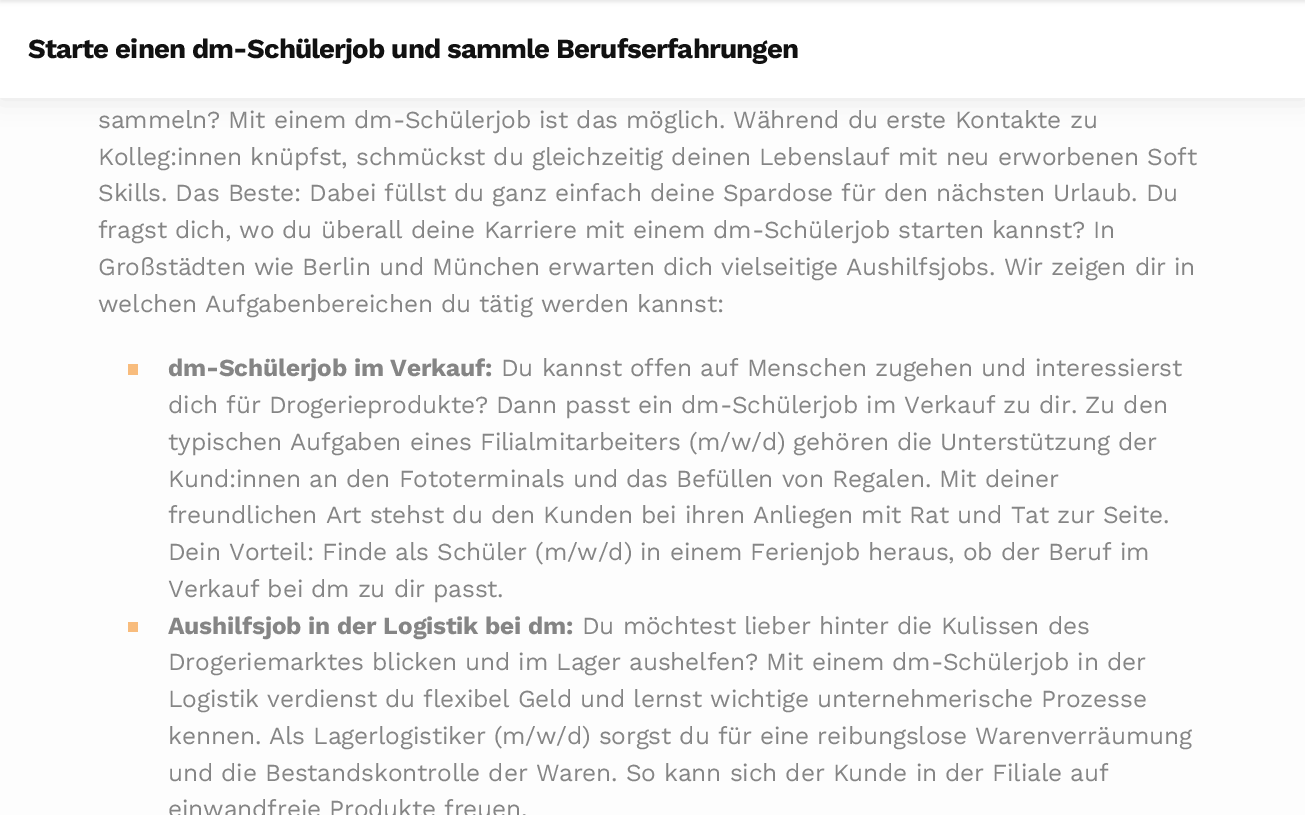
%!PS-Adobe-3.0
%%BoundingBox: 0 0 1305 815
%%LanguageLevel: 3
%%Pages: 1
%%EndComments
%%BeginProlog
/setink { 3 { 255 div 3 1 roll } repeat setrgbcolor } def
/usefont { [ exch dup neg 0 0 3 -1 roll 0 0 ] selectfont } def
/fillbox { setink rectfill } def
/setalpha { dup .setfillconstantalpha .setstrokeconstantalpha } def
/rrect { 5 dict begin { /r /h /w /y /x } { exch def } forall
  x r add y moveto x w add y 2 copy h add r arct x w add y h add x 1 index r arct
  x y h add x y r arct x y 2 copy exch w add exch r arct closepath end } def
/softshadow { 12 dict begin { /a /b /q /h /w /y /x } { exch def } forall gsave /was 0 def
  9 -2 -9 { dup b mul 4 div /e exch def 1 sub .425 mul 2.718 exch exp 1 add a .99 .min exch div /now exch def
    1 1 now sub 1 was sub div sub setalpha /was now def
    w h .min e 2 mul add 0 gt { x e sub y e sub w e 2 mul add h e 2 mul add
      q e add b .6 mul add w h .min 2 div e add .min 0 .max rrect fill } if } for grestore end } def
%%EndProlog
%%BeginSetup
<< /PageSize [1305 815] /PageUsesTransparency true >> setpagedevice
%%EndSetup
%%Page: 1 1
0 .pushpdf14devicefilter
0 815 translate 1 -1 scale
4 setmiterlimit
0 0 1305 815 253 253 253 fillbox
0 0 0 setink
0 0 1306 98 0 13 0.1 softshadow
0 0 1305 98 255 255 255 fillbox
0 0 0 setink
0 -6 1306 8 0 2 0.1 softshadow
/WorkSans-Bold 27.55 usefont
17 17 17 setink
28 58 moveto -0.88 0 (Starte einen dm-Schülerjob und sammle Berufserfahrungen) ashow
/WorkSans-Regular 24.5 usefont
133 133 133 setink
98 128 moveto -0.18 0 (sammeln? Mit einem dm-Schülerjob ist das möglich. Während du erste Kontakte zu) ashow
98 165 moveto -0.18 0 (Kolleg:innen knüpfst, schmückst du gleichzeitig deinen Lebenslauf mit neu erworbenen Soft) ashow
98 201 moveto -0.18 0 (Skills. Das Beste: Dabei füllst du ganz einfach deine Spardose für den nächsten Urlaub. Du) ashow
98 238 moveto -0.18 0 (fragst dich, wo du überall deine Karriere mit einem dm-Schülerjob starten kannst? In) ashow
98 275 moveto -0.18 0 (Großstädten wie Berlin und München erwarten dich vielseitige Aushilfsjobs. Wir zeigen dir in) ashow
98 312 moveto -0.18 0 (welchen Aufgabenbereichen du tätig werden kannst:) ashow
128 364 10 11 248 188 125 fillbox
/WorkSans-Bold 24.5 usefont
133 133 133 setink
168 376 moveto -0.18 0 (dm-Schülerjob im Verkauf:) ashow
/WorkSans-Regular 24.5 usefont
501 376 moveto -0.18 0 (Du kannst offen auf Menschen zugehen und interessierst) ashow
168 413 moveto -0.18 0 (dich für Drogerieprodukte? Dann passt ein dm-Schülerjob im Verkauf zu dir. Zu den) ashow
168 450 moveto -0.18 0 (typischen Aufgaben eines Filialmitarbeiters \(m/w/d\) gehören die Unterstützung der) ashow
168 487 moveto -0.18 0 (Kund:innen an den Fototerminals und das Befüllen von Regalen. Mit deiner) ashow
168 523 moveto -0.18 0 (freundlichen Art stehst du den Kunden bei ihren Anliegen mit Rat und Tat zur Seite.) ashow
168 560 moveto -0.18 0 (Dein Vorteil: Finde als Schüler \(m/w/d\) in einem Ferienjob heraus, ob der Beruf im) ashow
168 597 moveto -0.18 0 (Verkauf bei dm zu dir passt.) ashow
128 622 10 10 248 188 125 fillbox
/WorkSans-Bold 24.5 usefont
133 133 133 setink
168 634 moveto -0.18 0 (Aushilfsjob in der Logistik bei dm:) ashow
/WorkSans-Regular 24.5 usefont
582 634 moveto -0.18 0 (Du möchtest lieber hinter die Kulissen des) ashow
168 670 moveto -0.18 0 (Drogeriemarktes blicken und im Lager aushelfen? Mit einem dm-Schülerjob in der) ashow
168 707 moveto -0.18 0 (Logistik verdienst du flexibel Geld und lernst wichtige unternehmerische Prozesse) ashow
168 744 moveto -0.18 0 (kennen. Als Lagerlogistiker \(m/w/d\) sorgst du für eine reibungslose Warenverräumung) ashow
168 781 moveto -0.18 0 (und die Bestandskontrolle der Waren. So kann sich der Kunde in der Filiale auf) ashow
168 817 moveto -0.18 0 (einwandfreie Produkte freuen.) ashow
.poppdf14devicefilter showpage
%%EOF
